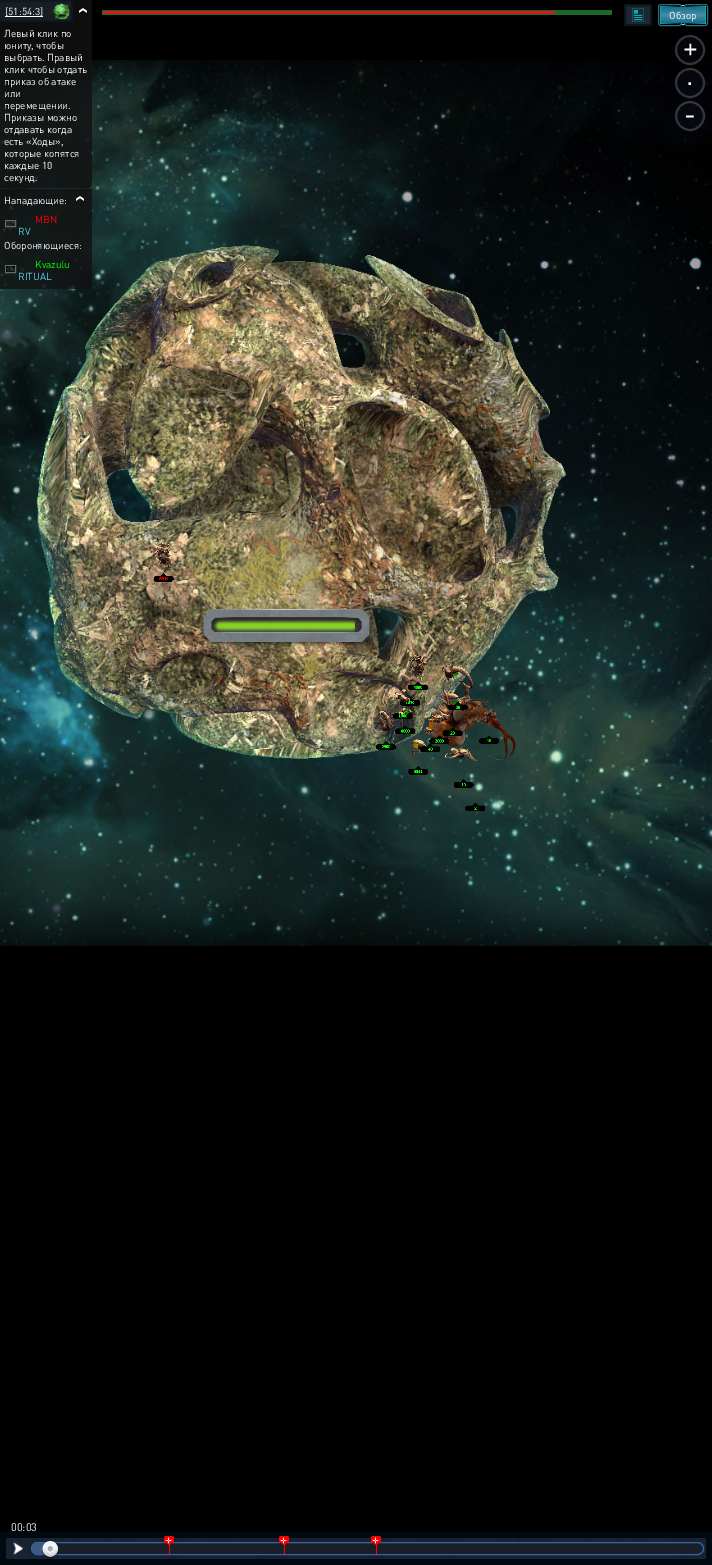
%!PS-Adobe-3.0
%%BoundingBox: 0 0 712 1565
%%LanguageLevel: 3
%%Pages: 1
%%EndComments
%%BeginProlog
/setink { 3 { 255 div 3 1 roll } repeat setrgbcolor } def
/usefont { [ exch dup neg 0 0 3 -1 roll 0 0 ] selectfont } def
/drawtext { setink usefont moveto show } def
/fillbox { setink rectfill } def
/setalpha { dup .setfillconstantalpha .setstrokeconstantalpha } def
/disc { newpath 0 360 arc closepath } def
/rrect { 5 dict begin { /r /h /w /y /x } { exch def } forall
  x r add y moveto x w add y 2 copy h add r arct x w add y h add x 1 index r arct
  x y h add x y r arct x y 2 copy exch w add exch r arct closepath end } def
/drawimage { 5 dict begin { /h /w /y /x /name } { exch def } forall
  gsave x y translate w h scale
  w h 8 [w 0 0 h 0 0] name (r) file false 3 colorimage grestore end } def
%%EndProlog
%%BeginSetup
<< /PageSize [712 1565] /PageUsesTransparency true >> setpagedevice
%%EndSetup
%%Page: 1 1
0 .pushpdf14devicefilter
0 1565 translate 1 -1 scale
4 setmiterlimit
0 0 712 1565 0 0 0 fillbox
(assets/img8.rgb) 0 60 712 886 drawimage
0.8 setalpha
17 17 17 setink
0 0 moveto 92 0 lineto 92 183 lineto 92 186 90 188 87 188 curveto 0 188 lineto closepath fill
1 setalpha
25 30 36 setink
-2 0 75 22 5 rrect fill
0.5 setalpha
1 19 31 setink
3 0 moveto 0 1 lineto 0 5 lineto 0 3 1 2 3 2 curveto 68 2 lineto 70 2 71 3 71 5 curveto 71 17 lineto 71 19 70 20 68 20 curveto 3 20 lineto 1 20 0 19 0 17 curveto 0 21 lineto 1 22 2 22 3 22 curveto 68 22 lineto 71 22 73 20 73 17 curveto 73 5 lineto 73 2 71 0 68 0 curveto closepath fill
1 setalpha
(assets/img1.rgb) 61 3 1 1 drawimage
([51:54:3]) 5 15 /DIN-Regular 10 255 255 255 drawtext
5 16 38 1 255 255 255 fillbox
(assets/img2.rgb) 53 3 17 17 drawimage
(assets/img3.rgb) 79 8 8 5 drawimage
(Левый клик по) 4 37 /DIN-Regular 10 255 255 255 drawtext
(юниту, чтобы) 4 49 /DIN-Regular 10 255 255 255 drawtext
(выбрать. Правый) 4 61 /DIN-Regular 10 255 255 255 drawtext
(клик чтобы отдать) 4 73 /DIN-Regular 10 255 255 255 drawtext
(приказ об атаке) 4 85 /DIN-Regular 10 255 255 255 drawtext
(или) 4 97 /DIN-Regular 10 255 255 255 drawtext
(перемещении.) 4 109 /DIN-Regular 10 255 255 255 drawtext
(Приказы можно) 4 121 /DIN-Regular 10 255 255 255 drawtext
(отдавать когда) 4 133 /DIN-Regular 10 255 255 255 drawtext
(есть «Ходы»,) 4 145 /DIN-Regular 10 255 255 255 drawtext
(которые копятся) 4 157 /DIN-Regular 10 255 255 255 drawtext
(каждые 10) 4 169 /DIN-Regular 10 255 255 255 drawtext
(секунд.) 4 181 /DIN-Regular 10 255 255 255 drawtext
0.8 setalpha
0 189 92 100 17 17 17 fillbox
1 setalpha
102 10 510 5 29 104 41 fillbox
103 11 452 3 206 27 30 fillbox
(Нападающие:) 4 204 /DIN-Regular 10 255 255 255 drawtext
0.93 setalpha
111 111 111 setink
5.5 220.5 10 6 rectstroke
1 setalpha
(assets/img4.rgb) 6 221 9 5 drawimage
(MBN) 35 223 /DIN-Regular 10 255 0 0 drawtext
(RV) 18 235 /DIN-Regular 10 96 207 236 drawtext
(Обороняющиеся:) 4 249 /DIN-Regular 10 255 255 255 drawtext
0.93 setalpha
111 111 111 setink
5.5 265.5 10 7 rectstroke
1 setalpha
(assets/img5.rgb) 6 266 9 6 drawimage
(Kvazulu) 35 268 /DIN-Regular 10 0 255 0 drawtext
(RITUAL) 18 280 /DIN-Regular 10 96 207 236 drawtext
(assets/img6.rgb) 76 196 8 5 drawimage
30 38 47 setink
624 4 28 22 2 rrect fill
(assets/img7.rgb) 632 8 12 14 drawimage
0.8 setalpha
1 19 31 setink
2 setlinewidth
625 5 26 20 1 rrect stroke
1 setalpha
137 220 250 setink
1 setlinewidth
680.5 5.5 5 19 2.5 rrect stroke
gsave 660 6 46 18 3 rrect clip newpath
<< /ShadingType 2 /ColorSpace /DeviceRGB /Coords [660 15 706 15] /Extend [true true] /Function << /FunctionType 3 /Domain [0 1] /Functions [<< /FunctionType 2 /Domain [0 1] /C0 [0.008 0.686 0.686] /C1 [0 0.012 0.039] /N 1 >> << /FunctionType 2 /Domain [0 1] /C0 [0 0.012 0.039] /C1 [0.008 0.686 0.686] /N 1 >>] /Bounds [0.5] /Encode [0 1 0 1] >> >> shfill grestore
46 107 128 setink
658.5 4.5 23 21 2.5 rrect stroke
684.5 4.5 23 21 2.5 rrect stroke
gsave 661 7 44 16 3 rrect clip newpath
<< /ShadingType 2 /ColorSpace /DeviceRGB /Coords [683 7 683 23] /Extend [true true] /Function << /FunctionType 3 /Domain [0 1] /Functions [<< /FunctionType 2 /Domain [0 1] /C0 [0.102 0.427 0.529] /C1 [0.271 0.553 0.655] /N 1 >> << /FunctionType 2 /Domain [0 1] /C0 [0.271 0.553 0.655] /C1 [0.102 0.427 0.529] /N 1 >>] /Bounds [0.5] /Encode [0 1 0 1] >> >> shfill grestore
(Обзор) 669 19 /DIN-Regular 10 255 255 255 drawtext
0.2 setalpha
21 31 49 setink
690 50 15 disc fill
235 235 235 setink
2 setlinewidth
690 50 14 disc stroke
1 setalpha
(+) 683 57 /DIN-Regular 28 255 255 255 drawtext
0.2 setalpha
21 31 49 setink
690 83 15 disc fill
235 235 235 setink
690 83 14 disc stroke
1 setalpha
(.) 686 85 /DIN-Regular 28 255 255 255 drawtext
0.2 setalpha
21 31 49 setink
690 116 15 disc fill
235 235 235 setink
690 116 14 disc stroke
1 setalpha
(-) 684 124 /DIN-Regular 28 255 255 255 drawtext
1 10 16 setink
6 setlinewidth
3 1535 706 27 rectstroke
(00:03) 11 1531 /DIN-Regular 11 255 255 255 drawtext
(assets/img12.rgb) 6 1538 700 21 drawimage
(assets/img9.rgb) 13 1542 10 13 drawimage
26 31 39 setink
31.5 1542.5 672 12 6 rrect gsave fill grestore
52 101 169 setink
1 setlinewidth
stroke
64 89 127 setink
32 1543 19 11 5.5 rrect fill
(assets/img10.rgb) 41 1541 18 18 drawimage
169 1543 1 11 255 0 0 fillbox
164 1536 10 7 2 rrect fill
164 1542 moveto 174 1542 lineto 169 1545 lineto closepath fill
(assets/img11.rgb) 165 1537 7 7 drawimage
284 1543 1 11 255 0 0 fillbox
279 1536 10 7 2 rrect fill
279 1542 moveto 289 1542 lineto 284 1545 lineto closepath fill
(assets/img11.rgb) 280 1537 7 7 drawimage
376 1543 1 11 255 0 0 fillbox
371 1536 10 7 2 rrect fill
371 1542 moveto 381 1542 lineto 376 1545 lineto closepath fill
(assets/img11.rgb) 372 1537 7 7 drawimage
.poppdf14devicefilter showpage
%%EOF
